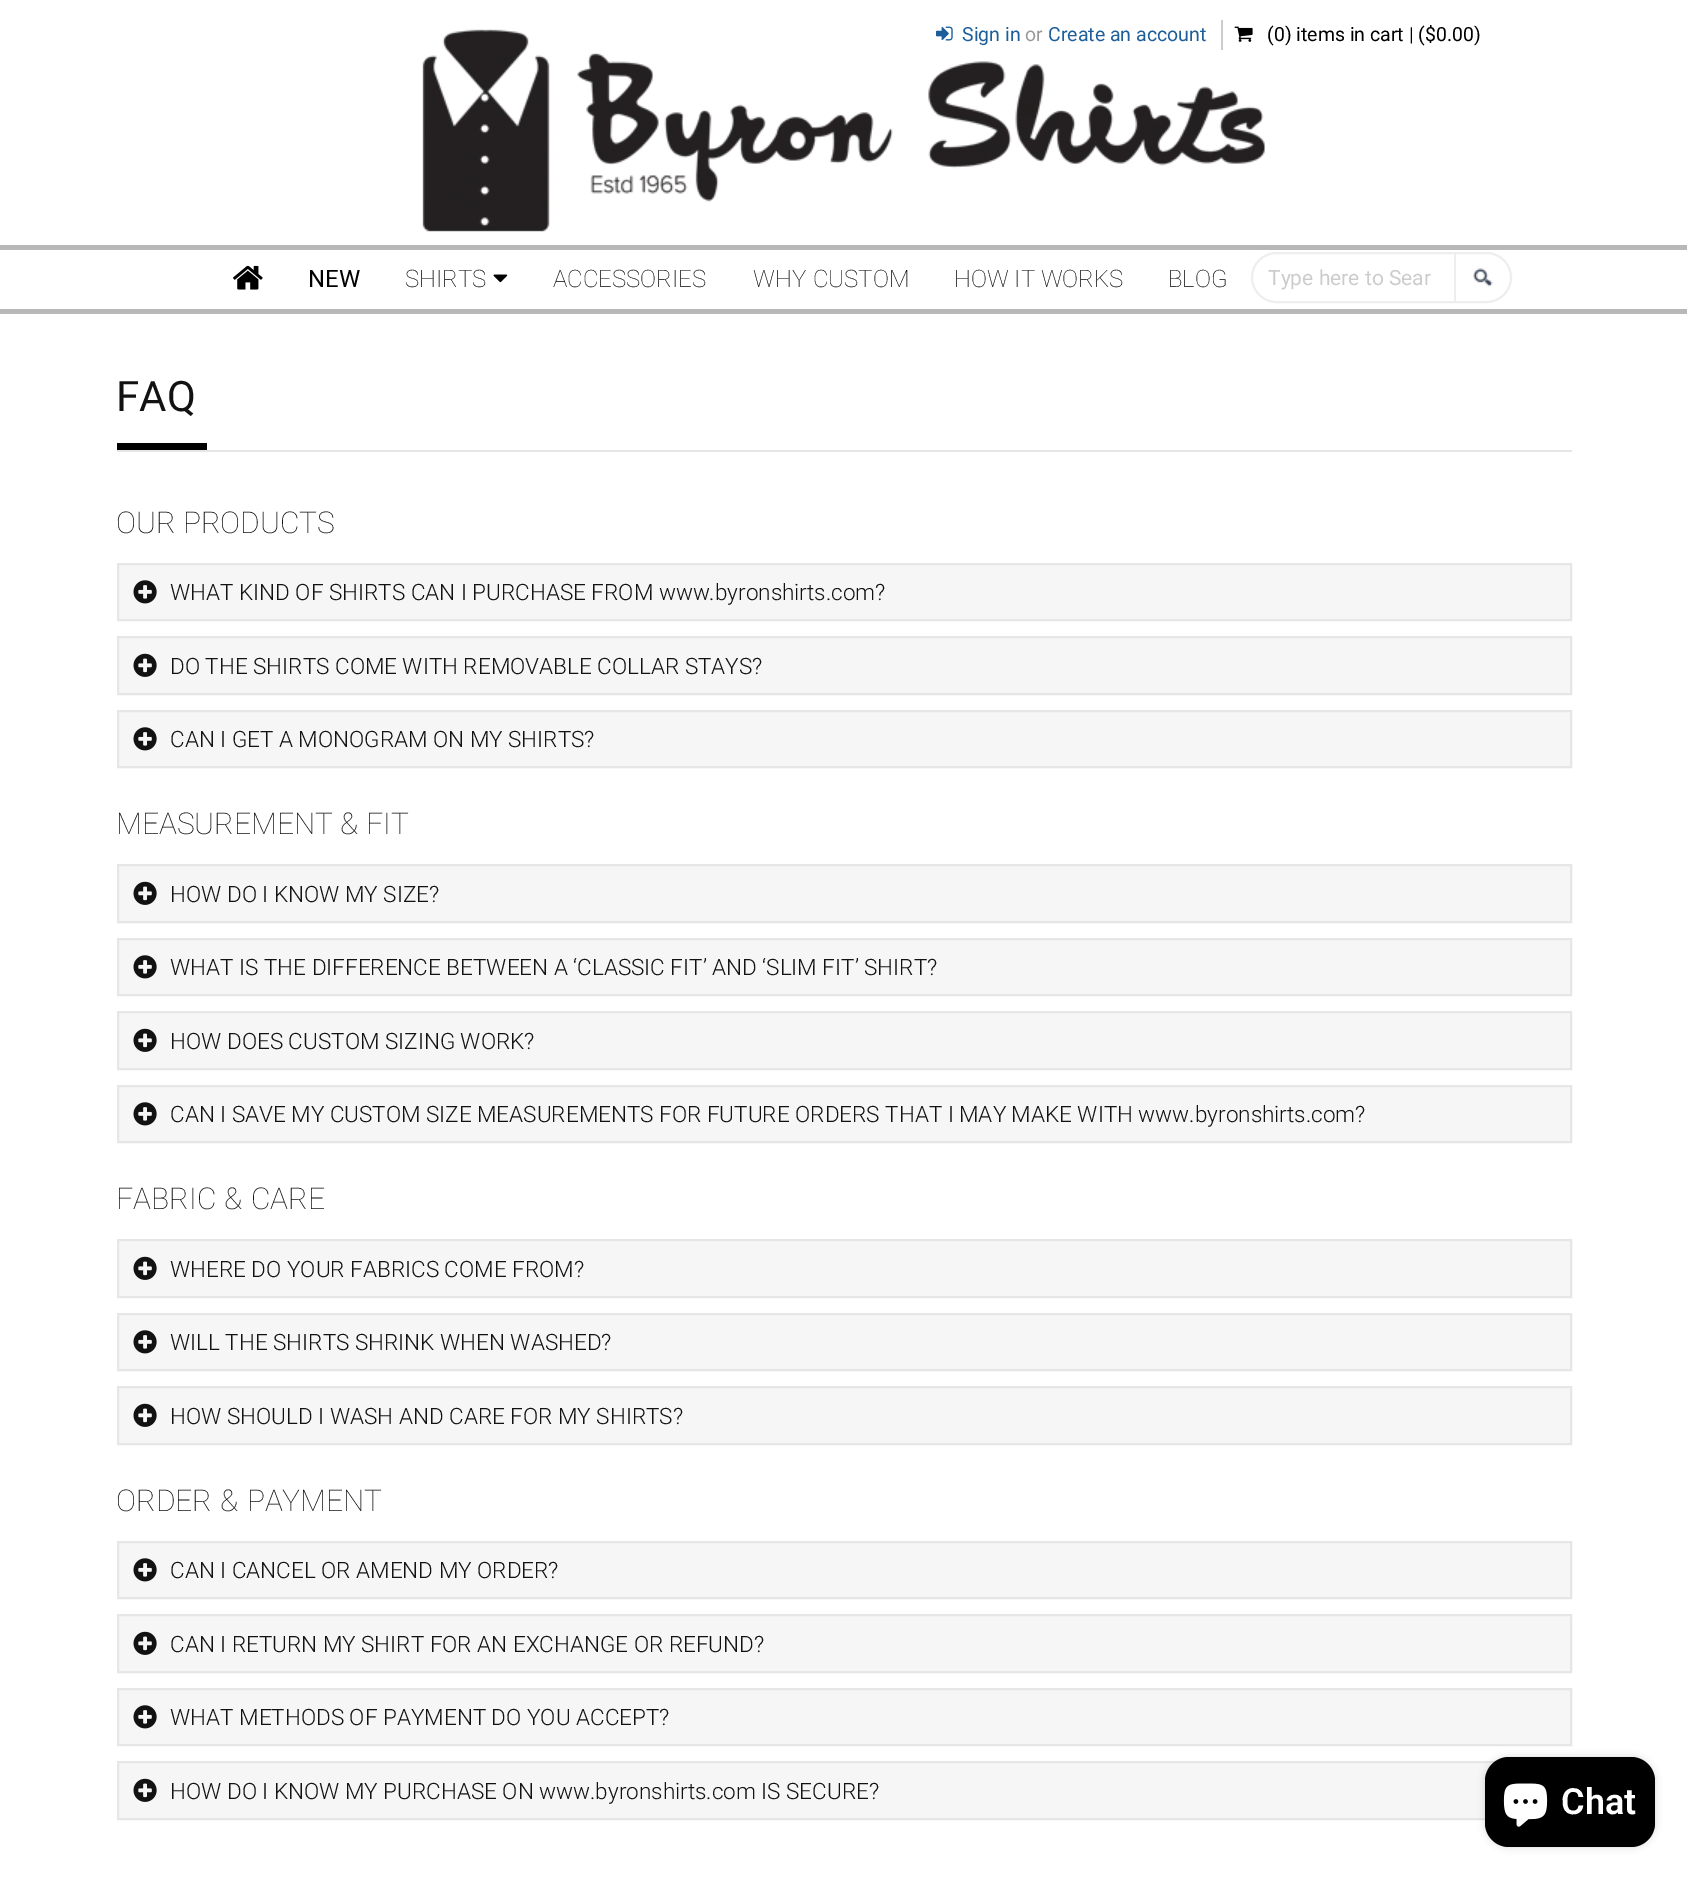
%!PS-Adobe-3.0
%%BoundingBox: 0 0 1687 1877
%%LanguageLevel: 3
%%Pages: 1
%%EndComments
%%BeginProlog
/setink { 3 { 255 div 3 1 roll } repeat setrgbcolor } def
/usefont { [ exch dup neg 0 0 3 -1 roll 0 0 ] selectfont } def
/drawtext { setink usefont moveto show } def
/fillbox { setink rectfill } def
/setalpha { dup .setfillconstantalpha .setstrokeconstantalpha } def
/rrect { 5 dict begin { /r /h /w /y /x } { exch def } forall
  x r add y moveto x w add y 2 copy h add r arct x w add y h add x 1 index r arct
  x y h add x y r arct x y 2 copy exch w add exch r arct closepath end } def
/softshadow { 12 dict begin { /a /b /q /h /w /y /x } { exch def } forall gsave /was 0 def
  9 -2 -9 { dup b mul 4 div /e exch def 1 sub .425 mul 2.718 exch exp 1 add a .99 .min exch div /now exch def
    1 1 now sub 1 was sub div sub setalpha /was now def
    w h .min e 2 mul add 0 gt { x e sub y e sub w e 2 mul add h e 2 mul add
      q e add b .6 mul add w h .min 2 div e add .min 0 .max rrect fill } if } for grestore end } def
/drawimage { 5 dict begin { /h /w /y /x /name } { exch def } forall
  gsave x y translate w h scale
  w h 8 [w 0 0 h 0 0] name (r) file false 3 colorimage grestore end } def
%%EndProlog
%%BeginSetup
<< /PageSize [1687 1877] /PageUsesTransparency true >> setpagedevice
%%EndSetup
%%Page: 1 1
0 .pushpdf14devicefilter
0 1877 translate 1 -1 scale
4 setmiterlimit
0 0 1687 1877 255 255 255 fillbox
(assets/img3.rgb) 422 29 843 203 drawimage
1221 20 2 30 204 204 204 fillbox
(assets/img1.rgb) 936 26 17 15 drawimage
(Sign in) 962 41 /Roboto-Regular 19.5 29 94 154 drawtext
(or) 1025 41 /Roboto-Regular 19.5 153 153 153 drawtext
(Create an account) 1048 41 /Roboto-Regular 19.5 29 94 154 drawtext
(assets/img2.rgb) 1234 26 19 16 drawimage
(\(0\) items in cart | \($0.00\)) 1267 41 /Roboto-Regular 19.5 0 0 0 drawtext
0 245 1687 5 184 184 184 fillbox
0 309 1687 5 184 184 184 fillbox
(assets/img4.rgb) 233 265 30 25 drawimage
(NEW) 308 287 /Roboto-Regular 24 0 0 0 drawtext
(SHIRTS) 405 287 /Roboto-Thin 24 0 0 0 drawtext
(assets/img5.rgb) 493 274 15 9 drawimage
(ACCESSORIES) 553 287 /Roboto-Thin 24 0 0 0 drawtext
753 287 moveto 1 0 32 (WHY CUSTOM) widthshow
(HOW IT WORKS) 954 287 /Roboto-Thin 24 0 0 0 drawtext
(BLOG) 1168 287 /Roboto-Thin 24 0 0 0 drawtext
238 238 238 setink
2 setlinewidth
1252 253 259 49 24.5 rrect stroke
(Type here to Sear) 1268 285 /Roboto-Regular 21 204 204 204 drawtext
(assets/img6.rgb) 1473 268 20 19 drawimage
1454 254 2 48 238 238 238 fillbox
117 450 1455 2 230 230 230 fillbox
(FAQ) 116 411 /Roboto-Regular 42 18 18 18 drawtext
117 443 90 7 0 0 0 fillbox
(OUR PRODUCTS) 116 533 /Roboto-Thin 30 18 18 18 drawtext
246 246 246 setink
118 564 moveto 1571 564 lineto 1571 620 lineto 118 620 lineto closepath gsave fill grestore
230 230 230 setink
stroke
(assets/img7.rgb) 133 580 24 24 drawimage
(WHAT KIND OF SHIRTS CAN I PURCHASE FROM www.byronshirts.com?) 170 600 /Roboto-Light 22.5 18 18 18 drawtext
246 246 246 setink
118 637 moveto 1571 637 lineto 1571 694 lineto 118 694 lineto closepath gsave fill grestore
230 230 230 setink
stroke
(assets/img8.rgb) 133 653 24 24 drawimage
(DO THE SHIRTS COME WITH REMOVABLE COLLAR STAYS?) 170 674 /Roboto-Light 22.5 18 18 18 drawtext
246 246 246 setink
118 711 moveto 1571 711 lineto 1571 767 lineto 118 767 lineto closepath gsave fill grestore
230 230 230 setink
stroke
(assets/img7.rgb) 133 727 24 24 drawimage
(CAN I GET A MONOGRAM ON MY SHIRTS?) 170 747 /Roboto-Light 22.5 18 18 18 drawtext
(MEASUREMENT & FIT) 116 834 /Roboto-Thin 30 18 18 18 drawtext
246 246 246 setink
118 865 moveto 1571 865 lineto 1571 922 lineto 118 922 lineto closepath gsave fill grestore
230 230 230 setink
stroke
(assets/img8.rgb) 133 881 24 24 drawimage
(HOW DO I KNOW MY SIZE?) 170 902 /Roboto-Light 22.5 18 18 18 drawtext
246 246 246 setink
118 939 moveto 1571 939 lineto 1571 995 lineto 118 995 lineto closepath gsave fill grestore
230 230 230 setink
stroke
(assets/img7.rgb) 133 955 24 24 drawimage
(WHAT IS THE DIFFERENCE BETWEEN A ‘CLASSIC FIT’ AND ‘SLIM FIT’ SHIRT?) 170 975 /Roboto-Light 22.5 18 18 18 drawtext
246 246 246 setink
118 1012 moveto 1571 1012 lineto 1571 1069 lineto 118 1069 lineto closepath gsave fill grestore
230 230 230 setink
stroke
(assets/img8.rgb) 133 1028 24 24 drawimage
(HOW DOES CUSTOM SIZING WORK?) 170 1049 /Roboto-Light 22.5 18 18 18 drawtext
246 246 246 setink
118 1086 moveto 1571 1086 lineto 1571 1142 lineto 118 1142 lineto closepath gsave fill grestore
230 230 230 setink
stroke
(assets/img7.rgb) 133 1102 24 24 drawimage
(CAN I SAVE MY CUSTOM SIZE MEASUREMENTS FOR FUTURE ORDERS THAT I MAY MAKE WITH www.byronshirts.com?) 170 1122 /Roboto-Light 22.5 18 18 18 drawtext
/Roboto-Thin 30 usefont
116 1209 moveto 1 0 32 (FABRIC & CARE) widthshow
246 246 246 setink
118 1240 moveto 1571 1240 lineto 1571 1297 lineto 118 1297 lineto closepath gsave fill grestore
230 230 230 setink
stroke
(assets/img8.rgb) 133 1256 24 24 drawimage
(WHERE DO YOUR FABRICS COME FROM?) 170 1277 /Roboto-Light 22.5 18 18 18 drawtext
246 246 246 setink
118 1314 moveto 1571 1314 lineto 1571 1370 lineto 118 1370 lineto closepath gsave fill grestore
230 230 230 setink
stroke
(assets/img7.rgb) 133 1330 24 24 drawimage
(WILL THE SHIRTS SHRINK WHEN WASHED?) 170 1350 /Roboto-Light 22.5 18 18 18 drawtext
246 246 246 setink
118 1387 moveto 1571 1387 lineto 1571 1444 lineto 118 1444 lineto closepath gsave fill grestore
230 230 230 setink
stroke
(assets/img8.rgb) 133 1403 24 24 drawimage
(HOW SHOULD I WASH AND CARE FOR MY SHIRTS?) 170 1424 /Roboto-Light 22.5 18 18 18 drawtext
/Roboto-Thin 30 usefont
116 1511 moveto 1 0 32 (ORDER & PAYMENT) widthshow
246 246 246 setink
118 1542 moveto 1571 1542 lineto 1571 1598 lineto 118 1598 lineto closepath gsave fill grestore
230 230 230 setink
stroke
(assets/img7.rgb) 133 1558 24 24 drawimage
(CAN I CANCEL OR AMEND MY ORDER?) 170 1578 /Roboto-Light 22.5 18 18 18 drawtext
246 246 246 setink
118 1615 moveto 1571 1615 lineto 1571 1672 lineto 118 1672 lineto closepath gsave fill grestore
230 230 230 setink
stroke
(assets/img8.rgb) 133 1631 24 24 drawimage
(CAN I RETURN MY SHIRT FOR AN EXCHANGE OR REFUND?) 170 1652 /Roboto-Light 22.5 18 18 18 drawtext
246 246 246 setink
118 1689 moveto 1571 1689 lineto 1571 1745 lineto 118 1745 lineto closepath gsave fill grestore
230 230 230 setink
stroke
(assets/img7.rgb) 133 1705 24 24 drawimage
(WHAT METHODS OF PAYMENT DO YOU ACCEPT?) 170 1725 /Roboto-Light 22.5 18 18 18 drawtext
119 1763 1375 55 246 246 246 fillbox
230 230 230 setink
118 1762 1453 57 rectstroke
(assets/img8.rgb) 133 1778 24 24 drawimage
(HOW DO I KNOW MY PURCHASE ON www.byronshirts.com IS SECURE?) 170 1799 /Roboto-Light 22.5 18 18 18 drawtext
0 0 0 setink
1485 1757 170 90 24 4 0.15 softshadow
1485 1757 170 90 24 rrect fill
(assets/img9.rgb) 1503 1783 45 44 drawimage
(Chat) 1561 1814 /Roboto-SemiBold 36 255 255 255 drawtext
.poppdf14devicefilter showpage
%%EOF
